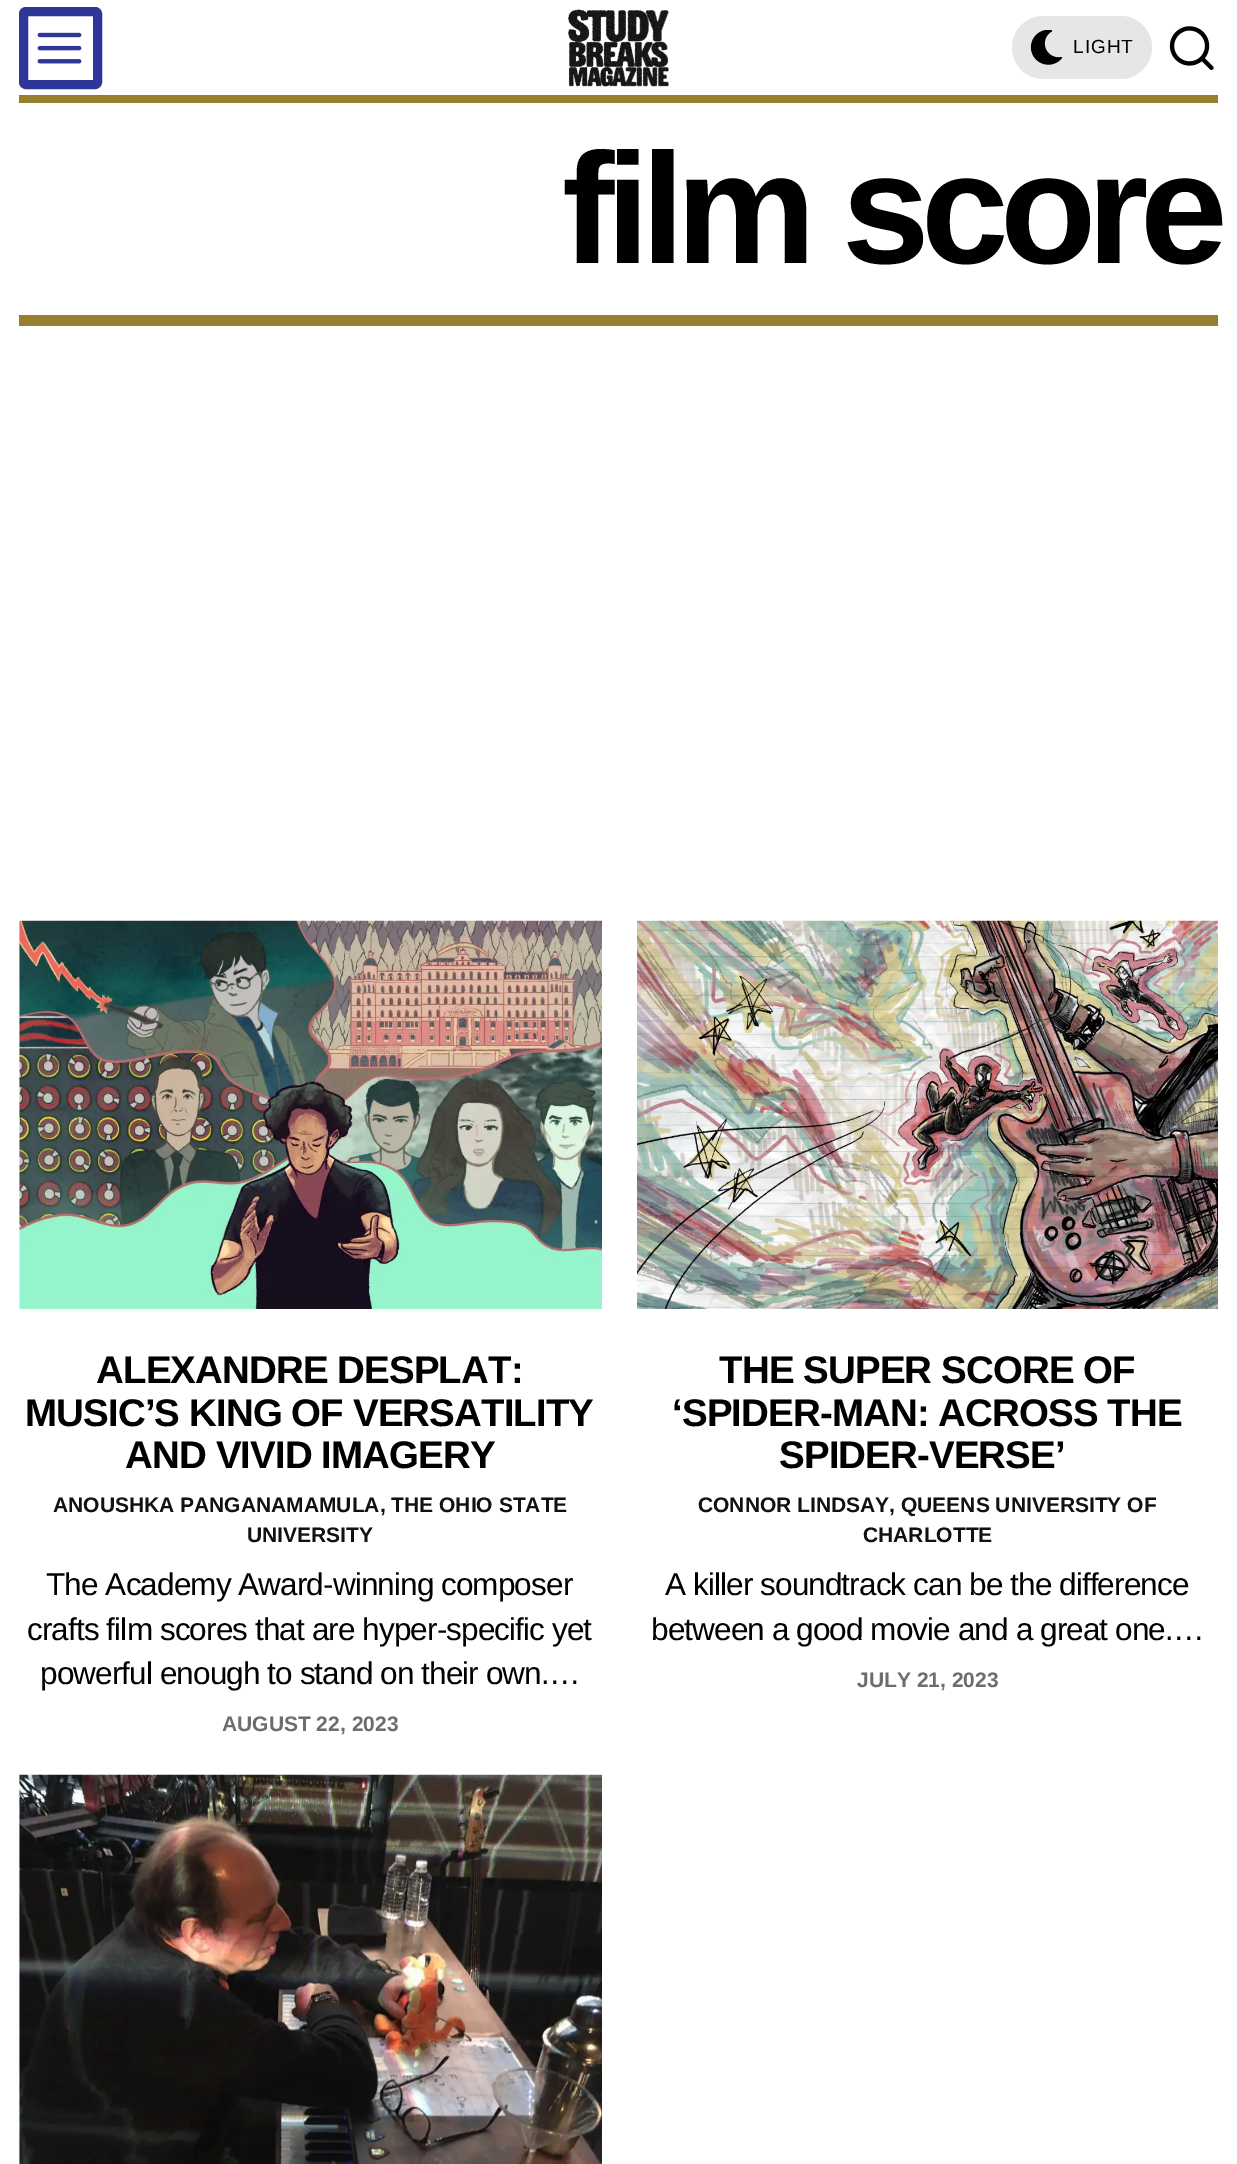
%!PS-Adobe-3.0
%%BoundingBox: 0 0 1237 2164
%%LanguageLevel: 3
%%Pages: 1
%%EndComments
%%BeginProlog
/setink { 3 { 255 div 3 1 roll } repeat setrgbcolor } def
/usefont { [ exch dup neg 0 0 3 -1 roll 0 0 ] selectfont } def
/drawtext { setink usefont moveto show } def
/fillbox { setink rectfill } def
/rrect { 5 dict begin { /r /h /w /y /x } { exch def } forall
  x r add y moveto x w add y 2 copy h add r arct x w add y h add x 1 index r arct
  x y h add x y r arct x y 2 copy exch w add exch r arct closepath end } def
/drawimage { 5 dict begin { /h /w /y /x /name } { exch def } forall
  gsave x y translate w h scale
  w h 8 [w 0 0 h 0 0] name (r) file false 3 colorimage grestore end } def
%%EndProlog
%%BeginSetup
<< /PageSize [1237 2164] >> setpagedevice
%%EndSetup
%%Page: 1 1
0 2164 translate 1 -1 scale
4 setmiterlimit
0 0 1237 2164 255 255 255 fillbox
46 54 151 setink
9 setlinewidth
23.5 11.5 74 73 2.5 rrect stroke
(assets/img1.rgb) 37 32 45 32 drawimage
(assets/img2.rgb) 568 9 101 78 drawimage
230 230 230 setink
1012 16 140 63 31.5 rrect fill
(assets/img3.rgb) 1030 30 33 35 drawimage
/LiberationSans-Regular 19 usefont
0 0 0 setink
1073 53 moveto 1 0 (LIGHT) ashow
(assets/img4.rgb) 1169 26 45 44 drawimage
19 95 1199 8 150 128 45 fillbox
19 315 1199 11 150 128 45 fillbox
/LiberationSans-Bold 157.5 usefont
0 0 0 setink
562 263 moveto -8.75 0 (film score) ashow
(assets/img5.rgb) 19 920 583 389 drawimage
/LiberationSans-Bold 38.5 usefont
96 1383 moveto -0.9 0 (ALEXANDRE DESPLAT:) ashow
25 1426 moveto -0.9 0 (MUSIC’S KING OF VERSATILITY) ashow
125 1468 moveto -0.9 0 (AND VIVID IMAGERY) ashow
(ANOUSHKA PANGANAMAMULA, THE OHIO STATE) 53 1512 /LiberationSans-Bold 21 17 17 17 drawtext
(UNIVERSITY) 247 1542 /LiberationSans-Bold 21 17 17 17 drawtext
/LiberationSans-Regular 31.5 usefont
0 0 0 setink
46 1595 moveto -0.9 0 (The Academy Award-winning composer) ashow
27 1640 moveto -0.9 0 (crafts film scores that are hyper-specific yet) ashow
40 1684 moveto -0.9 0 (powerful enough to stand on their own.…) ashow
(AUGUST 22, 2023) 222 1731 /LiberationSans-Bold 21 109 109 109 drawtext
(assets/img6.rgb) 637 920 581 389 drawimage
/LiberationSans-Bold 38.5 usefont
0 0 0 setink
719 1383 moveto -0.9 0 (THE SUPER SCORE OF) ashow
672 1426 moveto -0.9 0 (‘SPIDER-MAN: ACROSS THE) ashow
779 1468 moveto -0.9 0 (SPIDER-VERSE’) ashow
(CONNOR LINDSAY, QUEENS UNIVERSITY OF) 698 1512 /LiberationSans-Bold 21 17 17 17 drawtext
(CHARLOTTE) 863 1542 /LiberationSans-Bold 21 17 17 17 drawtext
/LiberationSans-Regular 31.5 usefont
0 0 0 setink
665 1595 moveto -0.9 0 (A killer soundtrack can be the difference) ashow
651 1640 moveto -0.9 0 (between a good movie and a great one.…) ashow
(JULY 21, 2023) 857 1687 /LiberationSans-Bold 21 109 109 109 drawtext
(assets/img7.rgb) 19 1774 583 390 drawimage
showpage
%%EOF
